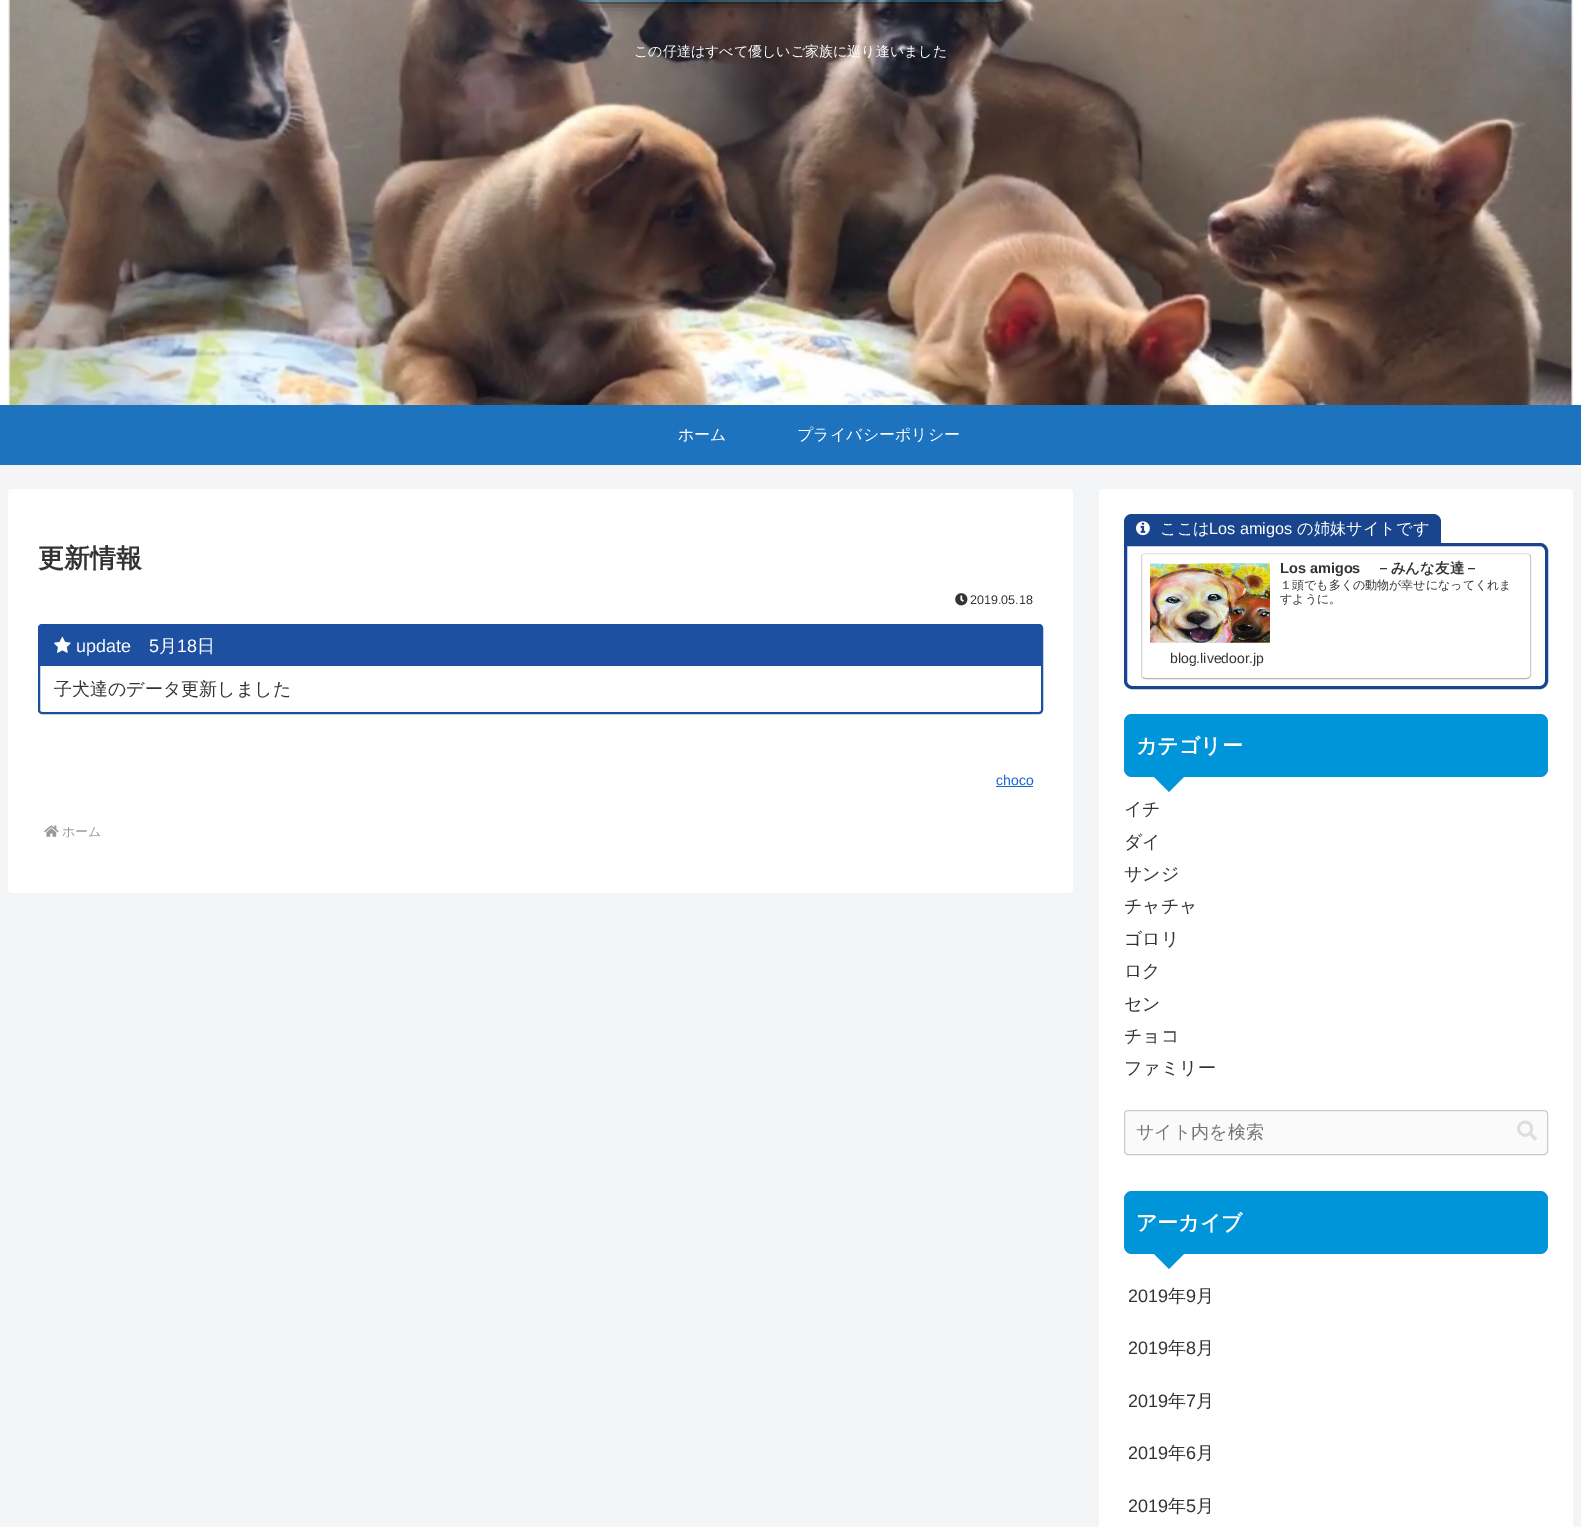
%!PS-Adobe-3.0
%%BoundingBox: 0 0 1581 1527
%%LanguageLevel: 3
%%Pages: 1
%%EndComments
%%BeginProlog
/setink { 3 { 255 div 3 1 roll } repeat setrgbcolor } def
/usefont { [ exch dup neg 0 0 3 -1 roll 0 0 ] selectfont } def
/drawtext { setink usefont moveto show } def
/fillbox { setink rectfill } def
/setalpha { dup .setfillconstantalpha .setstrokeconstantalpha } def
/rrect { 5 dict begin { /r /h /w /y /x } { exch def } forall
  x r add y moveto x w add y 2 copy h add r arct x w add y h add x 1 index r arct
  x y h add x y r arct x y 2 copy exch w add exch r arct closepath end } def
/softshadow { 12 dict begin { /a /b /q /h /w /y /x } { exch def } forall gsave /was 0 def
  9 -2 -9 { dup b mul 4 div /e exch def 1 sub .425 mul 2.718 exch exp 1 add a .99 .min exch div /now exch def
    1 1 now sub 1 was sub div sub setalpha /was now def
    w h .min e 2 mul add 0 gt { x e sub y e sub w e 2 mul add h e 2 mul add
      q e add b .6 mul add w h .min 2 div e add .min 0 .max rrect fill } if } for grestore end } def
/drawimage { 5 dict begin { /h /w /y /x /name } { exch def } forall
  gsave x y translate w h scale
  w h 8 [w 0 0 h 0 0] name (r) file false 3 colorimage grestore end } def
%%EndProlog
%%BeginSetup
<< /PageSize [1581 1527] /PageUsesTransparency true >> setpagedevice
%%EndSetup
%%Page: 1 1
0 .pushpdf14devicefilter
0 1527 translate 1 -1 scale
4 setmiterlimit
0 0 1581 1527 244 245 247 fillbox
0 0 1581 405 255 255 255 fillbox
(assets/img1.rgb) 8 0 1565 405 drawimage
gsave
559 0 moveto 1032 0 lineto 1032 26 lineto 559 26 lineto closepath 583 -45 moveto 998 -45 lineto 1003.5 -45 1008 -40.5 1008 -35 curveto 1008 -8 lineto 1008 -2.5 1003.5 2 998 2 curveto 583 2 lineto 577.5 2 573 -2.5 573 -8 curveto 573 -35 lineto 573 -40.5 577.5 -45 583 -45 curveto closepath eoclip newpath
0 0 0 setink
583 -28 425 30 5 7.5 0.8 softshadow
grestore
0.3 setalpha
0 149 217 setink
573 -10 435 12 10 rrect fill
1 setalpha
(この仔達はすべて優しいご家族に巡り逢いました) 634 56 /WenQuanYiZenHei-Medium 14 255 255 255 drawtext
0 405 1581 60 30 115 190 fillbox
(ホーム) 678 440 /WenQuanYiZenHei-Medium 16 255 255 255 drawtext
(プライバシーポリシー) 797 440 /WenQuanYiZenHei-Medium 16 255 255 255 drawtext
8 489 1065 404 4 rrect fill
(更新情報) 38 567 /WenQuanYiZenHei-Bold 26 51 51 51 drawtext
(assets/img2.rgb) 955 593 13 13 drawimage
(2019.05.18) 970 604 /LiberationSans-Regular 12.5 51 51 51 drawtext
30 80 162 setink
2 setlinewidth
39 625 1003 88 3 rrect stroke
40 626 1001 40 30 80 162 fillbox
(assets/img3.rgb) 54 636 17 17 drawimage
(update) 76 652 /LiberationSans-Regular 18 255 255 255 drawtext
(5) 149 652 /LiberationSans-Regular 18 255 255 255 drawtext
(月) 159 652 /WenQuanYiZenHei-Medium 18 255 255 255 drawtext
(18) 177 652 /LiberationSans-Regular 18 255 255 255 drawtext
(日) 197 652 /WenQuanYiZenHei-Medium 18 255 255 255 drawtext
(子犬達のデータ更新しました) 54 695 /WenQuanYiZenHei-Medium 18 51 51 51 drawtext
(choco) 996 785 /LiberationSans-Regular 14 25 103 210 drawtext
996 786 37 1 25 103 210 fillbox
(assets/img4.rgb) 44 825 15 12 drawimage
(ホーム) 62 836 /WenQuanYiZenHei-Medium 13 153 153 153 drawtext
255 255 255 setink
1099 489 474 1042 4 rrect fill
25 68 142 setink
1132 514 moveto 1433 514 lineto 1437.5 514 1441 517.5 1441 522 curveto 1441 543 lineto 1124 543 lineto 1124 522 lineto 1124 517.5 1127.5 514 1132 514 curveto closepath fill
(assets/img5.rgb) 1136 521 14 15 drawimage
(ここは) 1160 534 /WenQuanYiZenHei-Medium 16.25 255 255 255 drawtext
(Los amigos) 1209 534 /LiberationSans-Regular 16.25 255 255 255 drawtext
(の姉妹サイトです) 1297 534 /WenQuanYiZenHei-Medium 16.25 255 255 255 drawtext
25 68 142 setink
3 setlinewidth
1125.5 544.5 moveto 1540 544.5 lineto 1543.5 544.5 1546.5 547.5 1546.5 551 curveto 1546.5 681 lineto 1546.5 684.5 1543.5 687.5 1540 687.5 curveto 1132 687.5 lineto 1128.5 687.5 1125.5 684.5 1125.5 681 curveto closepath stroke
227 227 227 setink
1 setlinewidth
1142.5 554.5 moveto 1145 553.5 lineto 1527 553.5 lineto 1529.5 554.5 lineto stroke
206 206 206 setink
1529.5 554.5 moveto 1530 555 1530.5 556 1530.5 557 curveto 1530.5 675 lineto 1530.5 676 1530 677 1529.5 677.5 curveto stroke
180 180 180 setink
1529.5 677.5 moveto 1527 678.5 lineto 1145 678.5 lineto 1142.5 677.5 lineto stroke
214 214 214 setink
1142.5 677.5 moveto 1142 677 1141.5 676 1141.5 675 curveto 1141.5 557 lineto 1141.5 556 1142 555 1142.5 554.5 curveto stroke
(assets/img6.rgb) 1150 563 120 80 drawimage
(Los amigos) 1280 573 /LiberationSans-Bold 14.5 51 51 51 drawtext
(－みんな友達－) 1376 573 /WenQuanYiZenHei-Bold 14.5 51 51 51 drawtext
(１頭でも多くの動物が幸せになってくれま) 1280 589 /WenQuanYiZenHei-Medium 12 51 51 51 drawtext
(すように。) 1280 603 /WenQuanYiZenHei-Medium 12 51 51 51 drawtext
(blog.livedoor.jp) 1170 663 /LiberationSans-Regular 14 51 51 51 drawtext
0 149 217 setink
1124 714 424 63 8 rrect fill
(カテゴリー) 1136 753 /WenQuanYiZenHei-Bold 21 255 255 255 drawtext
0 149 217 setink
1154 777 moveto 1184 777 lineto 1169 792 lineto closepath fill
(イチ) 1124 815 /WenQuanYiZenHei-Medium 18 51 51 51 drawtext
(ダイ) 1124 848 /WenQuanYiZenHei-Medium 18 51 51 51 drawtext
(サンジ) 1124 880 /WenQuanYiZenHei-Medium 18 51 51 51 drawtext
(チャチャ) 1124 912 /WenQuanYiZenHei-Medium 18 51 51 51 drawtext
(ゴロリ) 1124 945 /WenQuanYiZenHei-Medium 18 51 51 51 drawtext
(ロク) 1124 977 /WenQuanYiZenHei-Medium 18 51 51 51 drawtext
(セン) 1124 1010 /WenQuanYiZenHei-Medium 18 51 51 51 drawtext
(チョコ) 1124 1042 /WenQuanYiZenHei-Medium 18 51 51 51 drawtext
(ファミリー) 1124 1074 /WenQuanYiZenHei-Medium 18 51 51 51 drawtext
250 250 250 setink
1124.5 1110.5 423 44 3.5 rrect gsave fill grestore
204 204 204 setink
stroke
(サイト内を検索) 1136 1138 /WenQuanYiZenHei-Medium 18 117 117 117 drawtext
(assets/img7.rgb) 1517 1120 20 21 drawimage
0 149 217 setink
1124 1191 424 63 8 rrect fill
(アーカイブ) 1136 1230 /WenQuanYiZenHei-Bold 21 255 255 255 drawtext
0 149 217 setink
1154 1254 moveto 1184 1254 lineto 1169 1269 lineto closepath fill
(2019) 1128 1302 /LiberationSans-Regular 18 51 51 51 drawtext
(年) 1168 1302 /WenQuanYiZenHei-Medium 18 51 51 51 drawtext
(9) 1186 1302 /LiberationSans-Regular 18 51 51 51 drawtext
(月) 1196 1302 /WenQuanYiZenHei-Medium 18 51 51 51 drawtext
(2019) 1128 1354 /LiberationSans-Regular 18 51 51 51 drawtext
(年) 1168 1354 /WenQuanYiZenHei-Medium 18 51 51 51 drawtext
(8) 1186 1354 /LiberationSans-Regular 18 51 51 51 drawtext
(月) 1196 1354 /WenQuanYiZenHei-Medium 18 51 51 51 drawtext
(2019) 1128 1407 /LiberationSans-Regular 18 51 51 51 drawtext
(年) 1168 1407 /WenQuanYiZenHei-Medium 18 51 51 51 drawtext
(7) 1186 1407 /LiberationSans-Regular 18 51 51 51 drawtext
(月) 1196 1407 /WenQuanYiZenHei-Medium 18 51 51 51 drawtext
(2019) 1128 1459 /LiberationSans-Regular 18 51 51 51 drawtext
(年) 1168 1459 /WenQuanYiZenHei-Medium 18 51 51 51 drawtext
(6) 1186 1459 /LiberationSans-Regular 18 51 51 51 drawtext
(月) 1196 1459 /WenQuanYiZenHei-Medium 18 51 51 51 drawtext
(2019) 1128 1512 /LiberationSans-Regular 18 51 51 51 drawtext
(年) 1168 1512 /WenQuanYiZenHei-Medium 18 51 51 51 drawtext
(5) 1186 1512 /LiberationSans-Regular 18 51 51 51 drawtext
(月) 1196 1512 /WenQuanYiZenHei-Medium 18 51 51 51 drawtext
.poppdf14devicefilter showpage
%%EOF
